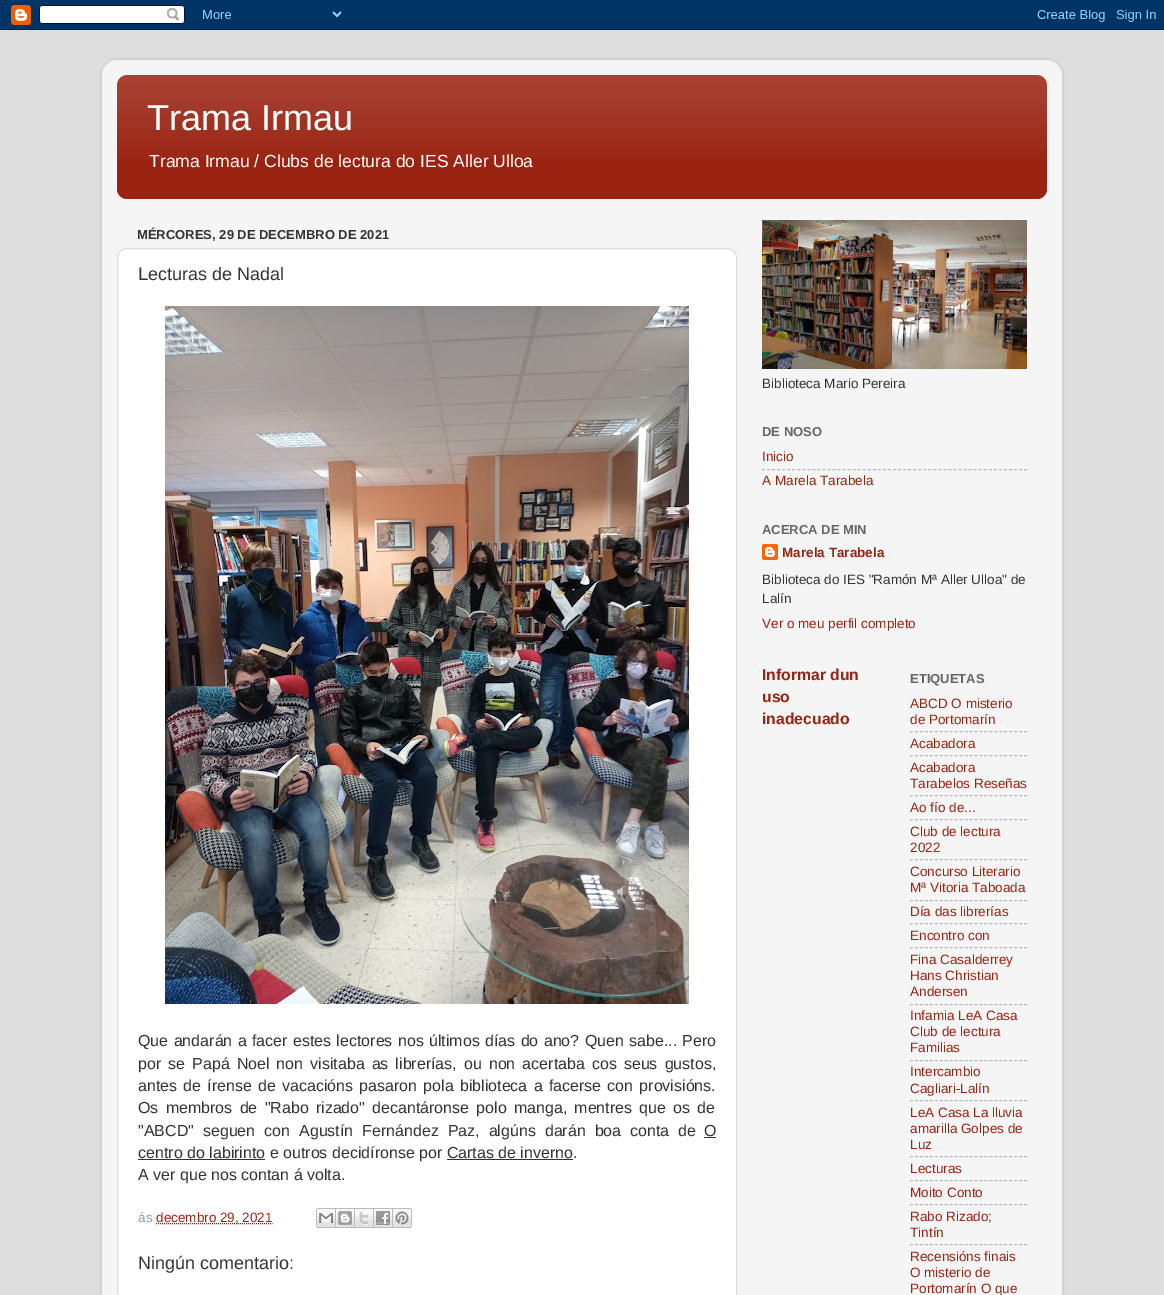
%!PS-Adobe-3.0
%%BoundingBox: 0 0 1164 1295
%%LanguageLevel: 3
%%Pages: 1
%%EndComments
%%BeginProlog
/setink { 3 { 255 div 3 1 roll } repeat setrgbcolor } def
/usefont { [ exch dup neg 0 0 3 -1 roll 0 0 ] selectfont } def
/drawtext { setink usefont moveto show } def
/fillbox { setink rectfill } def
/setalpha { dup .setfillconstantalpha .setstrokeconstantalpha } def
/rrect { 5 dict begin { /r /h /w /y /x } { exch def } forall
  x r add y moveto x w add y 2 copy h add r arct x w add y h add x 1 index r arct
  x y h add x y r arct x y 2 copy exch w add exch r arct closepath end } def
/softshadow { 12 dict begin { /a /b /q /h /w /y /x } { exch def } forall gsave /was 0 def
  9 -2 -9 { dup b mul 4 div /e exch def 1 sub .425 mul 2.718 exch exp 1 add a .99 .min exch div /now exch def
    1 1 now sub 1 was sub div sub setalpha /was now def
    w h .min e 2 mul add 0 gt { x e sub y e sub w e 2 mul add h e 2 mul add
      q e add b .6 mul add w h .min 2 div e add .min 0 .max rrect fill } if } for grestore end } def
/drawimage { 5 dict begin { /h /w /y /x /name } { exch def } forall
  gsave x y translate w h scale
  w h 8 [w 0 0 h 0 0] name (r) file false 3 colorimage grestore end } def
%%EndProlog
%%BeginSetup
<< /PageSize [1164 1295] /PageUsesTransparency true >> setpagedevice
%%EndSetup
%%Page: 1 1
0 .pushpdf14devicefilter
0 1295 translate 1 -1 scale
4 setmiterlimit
0 0 1164 1295 221 221 221 fillbox
(assets/img1.rgb) 0 0 1164 30 drawimage
gsave
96 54 moveto 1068 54 lineto 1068 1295 lineto 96 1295 lineto closepath 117 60 moveto 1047 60 lineto 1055.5 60 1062 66.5 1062 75 curveto 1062 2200 lineto 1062 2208.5 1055.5 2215 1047 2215 curveto 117 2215 lineto 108.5 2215 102 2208.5 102 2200 curveto 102 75 lineto 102 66.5 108.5 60 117 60 curveto closepath eoclip newpath
0 0 0 setink
102 60 960 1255 15 1.5 0.15 softshadow
grestore
(assets/img2.rgb) 102 60 960 1235 drawimage
153 34 17 setink
117 75 930 124 10 rrect fill
(assets/img3.rgb) 117 75 930 84 drawimage
(Trama Irmau) 147 130 /LiberationSans-Regular 36 255 255 255 drawtext
(Trama Irmau / Clubs de lectura do IES Aller Ulloa) 149 167 /LiberationSans-Regular 17.55 255 255 255 drawtext
(MÉRCORES, 29 DE DECEMBRO DE 2021) 137 239 /LiberationSans-Bold 13 51 51 51 drawtext
255 255 255 setink
117.5 248.5 619 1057 9.5 rrect gsave fill grestore
221 221 221 setink
stroke
(Lecturas de Nadal) 138 280 /LiberationSans-Regular 18 51 51 51 drawtext
(assets/img4.rgb) 165 306 524 698 drawimage
/LiberationSans-Regular 16 usefont
138 1046 moveto 0.9 0 32 (Que andarán a facer estes lectores nos últimos días do ano? Quen sabe... Pero) widthshow
138 1069 moveto 2.6 0 32 (por se Papá Noel non visitaba as librerías, ou non acertaba cos seus gustos,) widthshow
138 1091 moveto 1.75 0 32 (antes de írense de vacacións pasaron pola biblioteca a facerse con provisións.) widthshow
138 1113 moveto 2.75 0 32 (Os membros de "Rabo rizado" decantáronse polo manga, mentres que os de) widthshow
138 1136 moveto 4.5 0 32 ("ABCD" seguen con Agustín Fernández Paz, algúns darán boa conta de) widthshow
(O) 704 1136 /LiberationSans-Regular 16 51 51 51 drawtext
704 1137 12 1 51 51 51 fillbox
138 1159 127 1 51 51 51 fillbox
(centro do labirinto e outros decidíronse por Cartas de inverno.) 138 1158 /LiberationSans-Regular 16 51 51 51 drawtext
447 1159 126 1 51 51 51 fillbox
(A ver que nos contan á volta.) 138 1180 /LiberationSans-Regular 16 51 51 51 drawtext
(ás) 138 1222 /LiberationSans-Regular 13.5 153 153 153 drawtext
153 34 17 setink
[1 1] 0 setdash
156 1223.5 moveto 272.5 1223.5 lineto stroke
(decembro 29, 2021) 156 1222 /LiberationSans-Regular 13.5 153 34 17 drawtext
(assets/img5.rgb) 316 1208 20 20 drawimage
(assets/img6.rgb) 336 1208 19 20 drawimage
(assets/img7.rgb) 355 1208 19 20 drawimage
(assets/img8.rgb) 374 1208 19 20 drawimage
(assets/img9.rgb) 393 1208 19 20 drawimage
(Ningún comentario:) 138 1269 /LiberationSans-Regular 18 51 51 51 drawtext
(assets/img10.rgb) 762 220 265 149 drawimage
(Biblioteca Mario Pereira) 762 388 /LiberationSans-Regular 13.5 51 51 51 drawtext
(DE NOSO) 762 436 /LiberationSans-Bold 13 102 102 102 drawtext
(Inicio) 762 461 /LiberationSans-Regular 13.5 153 34 17 drawtext
186 186 186 setink
[3 2.04] 0 setdash
762 469.5 moveto 1027 469.5 lineto stroke
(A Marela Tarabela) 762 485 /LiberationSans-Regular 13.5 153 34 17 drawtext
(ACERCA DE MIN) 762 534 /LiberationSans-Bold 13 102 102 102 drawtext
(assets/img11.rgb) 762 544 16 16 drawimage
(Marela Tarabela) 782 557 /LiberationSans-Bold 13.5 153 34 17 drawtext
(Biblioteca do IES "Ramón Mª Aller Ulloa" de) 762 584 /LiberationSans-Regular 13.5 51 51 51 drawtext
(Lalín) 762 603 /LiberationSans-Regular 13.5 51 51 51 drawtext
(Ver o meu perfil completo) 762 628 /LiberationSans-Regular 13.5 153 34 17 drawtext
(Informar dun) 762 680 /LiberationSans-Bold 15.75 153 34 17 drawtext
(uso) 762 702 /LiberationSans-Bold 15.75 153 34 17 drawtext
(inadecuado) 762 724 /LiberationSans-Bold 15.75 153 34 17 drawtext
(ETIQUETAS) 910 683 /LiberationSans-Bold 13 102 102 102 drawtext
(ABCD O misterio) 910 708 /LiberationSans-Regular 13.5 153 34 17 drawtext
(de Portomarín) 910 724 /LiberationSans-Regular 13.5 153 34 17 drawtext
186 186 186 setink
[3 1.96] 0 setdash
910 731.5 moveto 1027 731.5 lineto stroke
(Acabadora) 910 748 /LiberationSans-Regular 13.5 153 34 17 drawtext
186 186 186 setink
910 755.5 moveto 1027 755.5 lineto stroke
(Acabadora) 910 772 /LiberationSans-Regular 13.5 153 34 17 drawtext
(Tarabelos Reseñas) 910 788 /LiberationSans-Regular 13.5 153 34 17 drawtext
186 186 186 setink
910 795.5 moveto 1027 795.5 lineto stroke
(Ao fío de...) 910 812 /LiberationSans-Regular 13.5 153 34 17 drawtext
186 186 186 setink
910 819.5 moveto 1027 819.5 lineto stroke
(Club de lectura) 910 836 /LiberationSans-Regular 13.5 153 34 17 drawtext
(2022) 910 852 /LiberationSans-Regular 13.5 153 34 17 drawtext
186 186 186 setink
910 859.5 moveto 1027 859.5 lineto stroke
(Concurso Literario) 910 876 /LiberationSans-Regular 13.5 153 34 17 drawtext
(Mª Vitoria Taboada) 910 892 /LiberationSans-Regular 13.5 153 34 17 drawtext
186 186 186 setink
910 900.5 moveto 1027 900.5 lineto stroke
(Día das librerías) 910 916 /LiberationSans-Regular 13.5 153 34 17 drawtext
186 186 186 setink
910 923.5 moveto 1027 923.5 lineto stroke
(Encontro con) 910 940 /LiberationSans-Regular 13.5 153 34 17 drawtext
186 186 186 setink
910 947.5 moveto 1027 947.5 lineto stroke
(Fina Casalderrey) 910 964 /LiberationSans-Regular 13.5 153 34 17 drawtext
(Hans Christian) 910 980 /LiberationSans-Regular 13.5 153 34 17 drawtext
(Andersen) 910 996 /LiberationSans-Regular 13.5 153 34 17 drawtext
186 186 186 setink
910 1004.5 moveto 1027 1004.5 lineto stroke
(Infamia LeA Casa) 910 1020 /LiberationSans-Regular 13.5 153 34 17 drawtext
(Club de lectura) 910 1036 /LiberationSans-Regular 13.5 153 34 17 drawtext
(Familias) 910 1052 /LiberationSans-Regular 13.5 153 34 17 drawtext
186 186 186 setink
910 1060.5 moveto 1027 1060.5 lineto stroke
(Intercambio) 910 1076 /LiberationSans-Regular 13.5 153 34 17 drawtext
(Cagliari-Lalín) 910 1093 /LiberationSans-Regular 13.5 153 34 17 drawtext
186 186 186 setink
910 1100.5 moveto 1027 1100.5 lineto stroke
(LeA Casa La lluvia) 910 1117 /LiberationSans-Regular 13.5 153 34 17 drawtext
(amarilla Golpes de) 910 1133 /LiberationSans-Regular 13.5 153 34 17 drawtext
(Luz) 910 1149 /LiberationSans-Regular 13.5 153 34 17 drawtext
186 186 186 setink
910 1156.5 moveto 1027 1156.5 lineto stroke
(Lecturas) 910 1173 /LiberationSans-Regular 13.5 153 34 17 drawtext
186 186 186 setink
910 1180.5 moveto 1027 1180.5 lineto stroke
(Moito Conto) 910 1197 /LiberationSans-Regular 13.5 153 34 17 drawtext
186 186 186 setink
910 1204.5 moveto 1027 1204.5 lineto stroke
(Rabo Rizado;) 910 1221 /LiberationSans-Regular 13.5 153 34 17 drawtext
(Tintín) 910 1237 /LiberationSans-Regular 13.5 153 34 17 drawtext
186 186 186 setink
910 1244.5 moveto 1027 1244.5 lineto stroke
(Recensións finais) 910 1261 /LiberationSans-Regular 13.5 153 34 17 drawtext
(O misterio de) 910 1277 /LiberationSans-Regular 13.5 153 34 17 drawtext
(Portomarín O que) 910 1293 /LiberationSans-Regular 13.5 153 34 17 drawtext
.poppdf14devicefilter showpage
%%EOF
